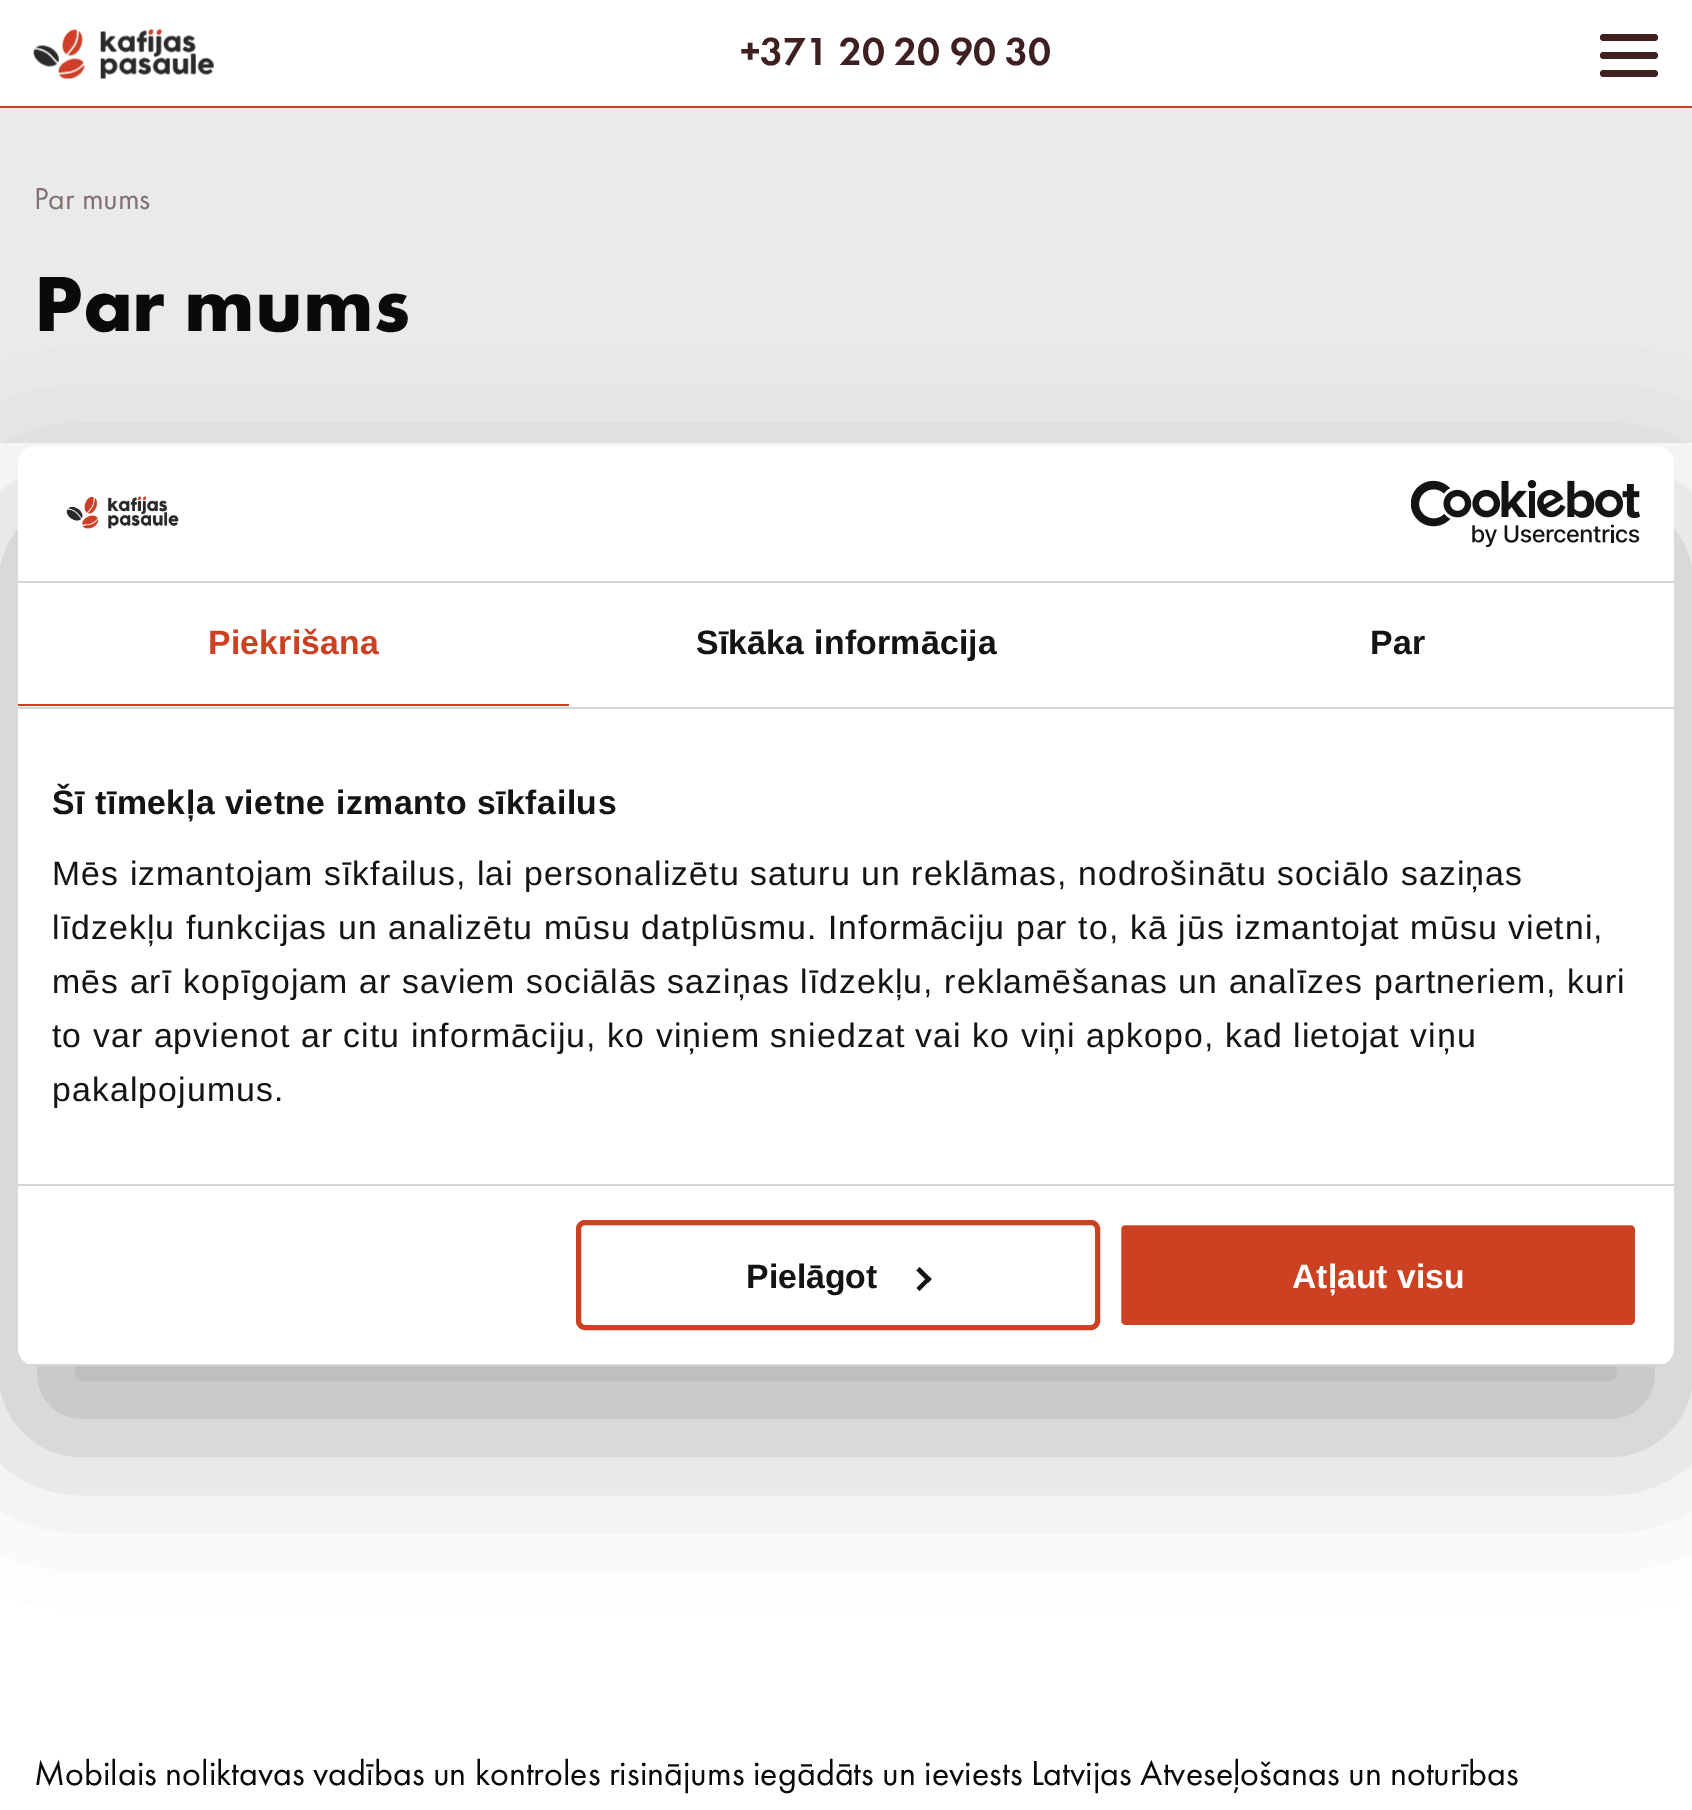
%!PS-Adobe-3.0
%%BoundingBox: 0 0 1692 1810
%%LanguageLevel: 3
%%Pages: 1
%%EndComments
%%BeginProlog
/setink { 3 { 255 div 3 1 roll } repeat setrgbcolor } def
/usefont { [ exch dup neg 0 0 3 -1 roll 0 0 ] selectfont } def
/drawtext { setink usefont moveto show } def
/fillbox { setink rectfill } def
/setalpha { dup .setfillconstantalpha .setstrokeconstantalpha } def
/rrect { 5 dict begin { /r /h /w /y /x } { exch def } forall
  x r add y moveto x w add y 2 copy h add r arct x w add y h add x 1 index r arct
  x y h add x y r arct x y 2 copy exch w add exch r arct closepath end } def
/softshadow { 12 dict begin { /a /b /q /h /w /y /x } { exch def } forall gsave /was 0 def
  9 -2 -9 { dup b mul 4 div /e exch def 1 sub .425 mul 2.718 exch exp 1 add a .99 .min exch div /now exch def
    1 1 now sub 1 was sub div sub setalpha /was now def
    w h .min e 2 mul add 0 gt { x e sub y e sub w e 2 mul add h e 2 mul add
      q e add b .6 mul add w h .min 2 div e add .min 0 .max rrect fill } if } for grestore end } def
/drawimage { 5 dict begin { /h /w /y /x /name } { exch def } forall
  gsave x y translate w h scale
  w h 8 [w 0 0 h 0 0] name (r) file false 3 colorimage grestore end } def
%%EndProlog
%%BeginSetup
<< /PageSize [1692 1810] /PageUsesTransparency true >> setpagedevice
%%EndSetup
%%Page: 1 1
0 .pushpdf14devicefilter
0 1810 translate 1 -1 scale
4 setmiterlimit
0 0 1692 1810 255 255 255 fillbox
0 106 1692 2 205 65 35 fillbox
(assets/img1.rgb) 33 29 181 50 drawimage
(+371 20 20 90 30) 740 65 /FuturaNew-Medium 40.5 63 32 33 drawtext
1600 52 58 7 3.5 rrect fill
1600 34 58 7 3.5 rrect fill
1600 70 58 7 3.5 rrect fill
0 108 1692 335 234 234 234 fillbox
(Par mums) 34 209 /FuturaNew-Regular 31.5 131 113 113 drawtext
(Par mums) 34 331 /FuturaNew-Bold 81 10 10 10 drawtext
0 0 0 setink
18 518 1656 920 18 76.5 0.3 softshadow
255 255 255 setink
18 446 1656 920 18 rrect fill
18 581 1656 2 214 214 214 fillbox
(assets/img2.rgb) 66 496 113 33 drawimage
(assets/img3.rgb) 1411 480 229 67 drawimage
18 707 1656 2 214 214 214 fillbox
18 704 551 2 205 65 35 fillbox
/LiberationSans-Bold 33.75 usefont
208 654 moveto 0.25 0 (Piekrišana) ashow
20 20 20 setink
696 654 moveto 0.25 0 (Sīkāka informācija) ashow
1370 654 moveto 0.25 0 (Par) ashow
18 1184 1656 2 214 214 214 fillbox
20 20 20 setink
52 814 moveto 0.55 0 (Šī tīmekļa vietne izmanto sīkfailus) ashow
/LiberationSans-Regular 33.75 usefont
52 885 moveto 1.12 0 (Mēs izmantojam sīkfailus, lai personalizētu saturu un reklāmas, nodrošinātu sociālo saziņas) ashow
52 939 moveto 1.12 0 (līdzekļu funkcijas un analizētu mūsu datplūsmu. Informāciju par to, kā jūs izmantojat mūsu vietni,) ashow
52 993 moveto 1.12 0 (mēs arī kopīgojam ar saviem sociālās saziņas līdzekļu, reklamēšanas un analīzes partneriem, kuri) ashow
52 1047 moveto 1.12 0 (to var apvienot ar citu informāciju, ko viņiem sniedzat vai ko viņi apkopo, kad lietojat viņu) ashow
52 1101 moveto 1.12 0 (pakalpojumus.) ashow
gsave
18 446 1656 920 18 rrect clip newpath
28 1364 1636 2 214 214 214 fillbox
grestore
205 65 35 setink
5 setlinewidth
578.5 1222.5 519 105 6.5 rrect stroke
(Pielāgot) 746 1288 /LiberationSans-Bold 33.75 20 20 20 drawtext
919.5 1267 moveto 931.5 1279 lineto 928.5 1282.5 lineto 916.5 1270.5 lineto closepath fill
928.5 1276 moveto 931.5 1279 lineto 919.5 1291 lineto 916.5 1288 lineto closepath fill
205 65 35 setink
1118.5 1222.5 519 105 6.5 rrect gsave fill grestore
255 255 255 setink
stroke
(Atļaut visu) 1292 1288 /LiberationSans-Bold 33.75 255 255 255 drawtext
(Mobilais noliktavas vadības un kontroles risinājums iegādāts un ieviests Latvijas Atveseļošanas un noturības) 34 1785 /FuturaNew-Regular 36 10 10 10 drawtext
.poppdf14devicefilter showpage
%%EOF
